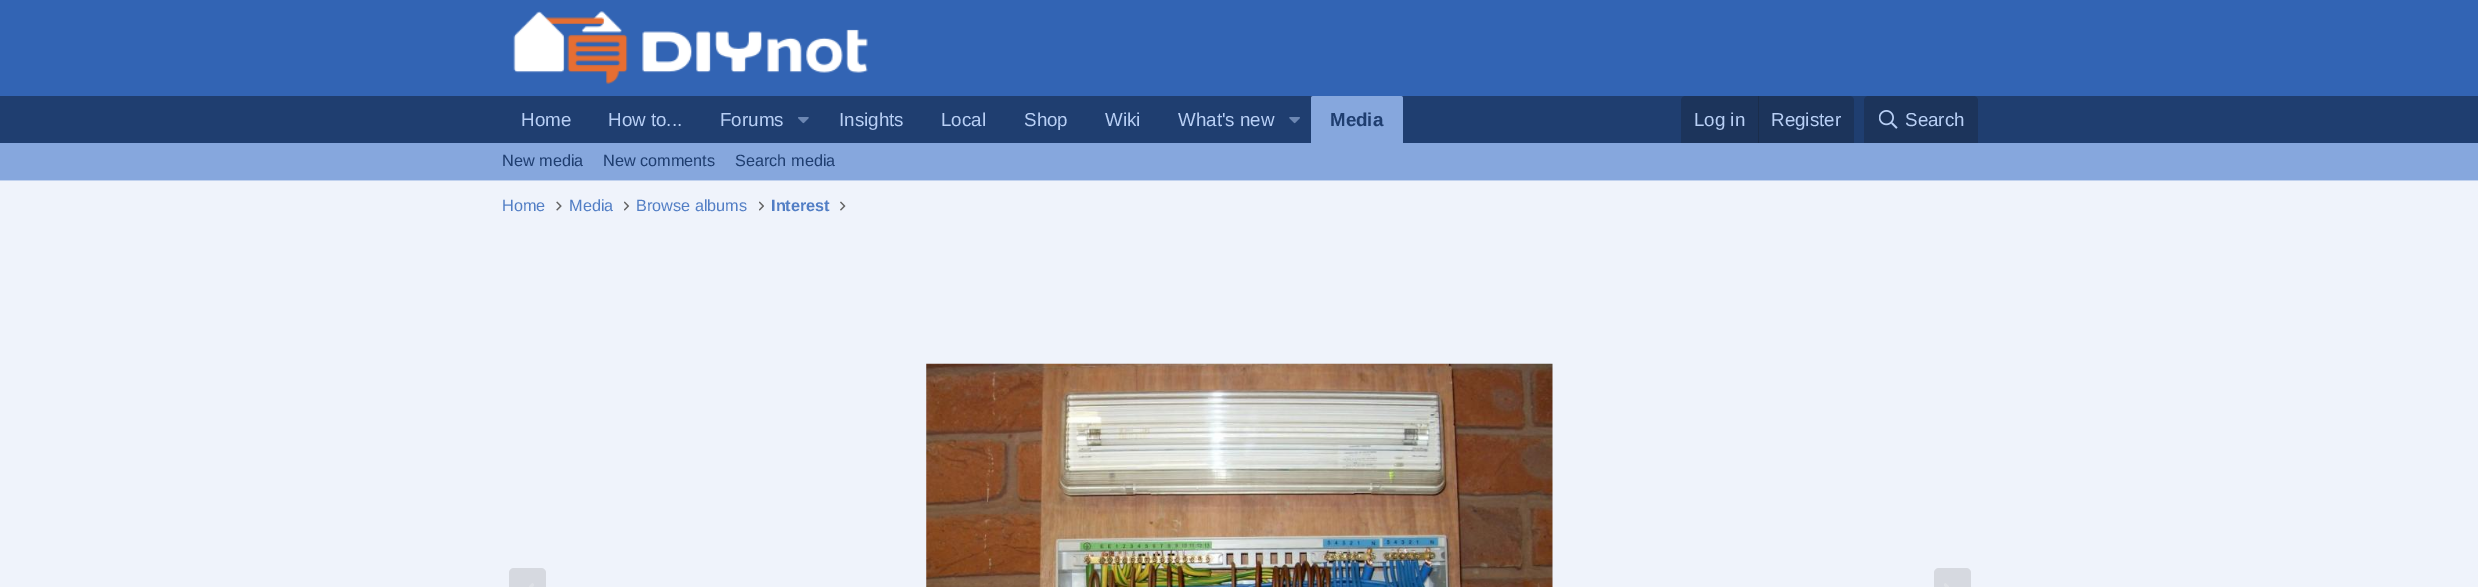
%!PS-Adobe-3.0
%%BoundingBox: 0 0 2478 587
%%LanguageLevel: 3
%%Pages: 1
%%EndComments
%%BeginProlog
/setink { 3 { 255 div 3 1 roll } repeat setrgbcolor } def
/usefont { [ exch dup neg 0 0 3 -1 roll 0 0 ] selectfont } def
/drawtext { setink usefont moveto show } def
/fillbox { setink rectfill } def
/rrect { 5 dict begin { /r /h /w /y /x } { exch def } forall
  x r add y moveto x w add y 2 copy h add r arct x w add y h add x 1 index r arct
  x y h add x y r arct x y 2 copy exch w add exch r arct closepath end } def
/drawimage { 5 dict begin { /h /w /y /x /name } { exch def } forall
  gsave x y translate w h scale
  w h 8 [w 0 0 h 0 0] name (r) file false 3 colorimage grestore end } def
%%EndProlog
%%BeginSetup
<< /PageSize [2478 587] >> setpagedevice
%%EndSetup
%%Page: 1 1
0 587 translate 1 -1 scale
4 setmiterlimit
0 0 2478 587 239 243 251 fillbox
0 0 2478 96 50 100 180 fillbox
(assets/img1.rgb) 513 11 355 73 drawimage
0 96 2478 47 31 62 112 fillbox
(Home) 521 126 /LiberationSans-Regular 18.75 184 207 245 drawtext
(How to...) 608 126 /LiberationSans-Regular 18.75 184 207 245 drawtext
(Forums) 720 126 /LiberationSans-Regular 18.75 184 207 245 drawtext
(assets/img2.rgb) 798 117 11 7 drawimage
(Insights) 839 126 /LiberationSans-Regular 18.75 184 207 245 drawtext
(Local) 941 126 /LiberationSans-Regular 18.75 184 207 245 drawtext
(Shop) 1024 126 /LiberationSans-Regular 18.75 184 207 245 drawtext
(Wiki) 1105 126 /LiberationSans-Regular 18.75 184 207 245 drawtext
(What's new) 1178 126 /LiberationSans-Regular 18.75 184 207 245 drawtext
(assets/img3.rgb) 1289 117 11 7 drawimage
134 167 221 setink
1313.5 96 moveto 1400.5 96 lineto 1402 96 1403 97 1403 98.5 curveto 1403 143 lineto 1311 143 lineto 1311 98.5 lineto 1311 97 1312 96 1313.5 96 curveto closepath fill
(Media) 1330 126 /LiberationSans-Bold 18.75 31 62 112 drawtext
28 52 91 setink
1686 96 moveto 1849 96 lineto 1852 96 1854 98 1854 101 curveto 1854 143 lineto 1681 143 lineto 1681 101 lineto 1681 98 1683 96 1686 96 curveto closepath fill
(Log in) 1694 126 /LiberationSans-Regular 18.75 184 207 245 drawtext
1758 96 1 47 26 45 75 fillbox
(Register) 1771 126 /LiberationSans-Regular 18.75 184 207 245 drawtext
28 52 91 setink
1869 96 moveto 1973 96 lineto 1976 96 1978 98 1978 101 curveto 1978 143 lineto 1864 143 lineto 1864 101 lineto 1864 98 1866 96 1869 96 curveto closepath fill
(assets/img4.rgb) 1879 110 19 19 drawimage
(Search) 1905 126 /LiberationSans-Regular 18.75 184 207 245 drawtext
0 143 2478 37 134 167 221 fillbox
0 180 2478 1 192 209 238 fillbox
(New media) 502 166 /LiberationSans-Regular 16.25 31 62 112 drawtext
(New comments) 603 166 /LiberationSans-Regular 16.25 31 62 112 drawtext
(Search media) 735 166 /LiberationSans-Regular 16.25 31 62 112 drawtext
(Home) 502 211 /LiberationSans-Regular 16.25 82 126 197 drawtext
(assets/img5.rgb) 556 201 6 10 drawimage
(Media) 569 211 /LiberationSans-Regular 16.25 82 126 197 drawtext
(assets/img6.rgb) 624 201 6 10 drawimage
(Browse albums) 636 211 /LiberationSans-Regular 16.25 82 126 197 drawtext
(assets/img7.rgb) 759 201 5 10 drawimage
(Interest) 771 211 /LiberationSans-Bold 16.25 82 126 197 drawtext
(assets/img8.rgb) 840 201 6 10 drawimage
214 217 224 setink
509 568 37 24 5 rrect fill
(assets/img9.rgb) 529 583 5 4 drawimage
(assets/img10.rgb) 926 363 627 224 drawimage
1934 568 37 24 5 rrect fill
(assets/img11.rgb) 1944 583 5 4 drawimage
showpage
%%EOF
